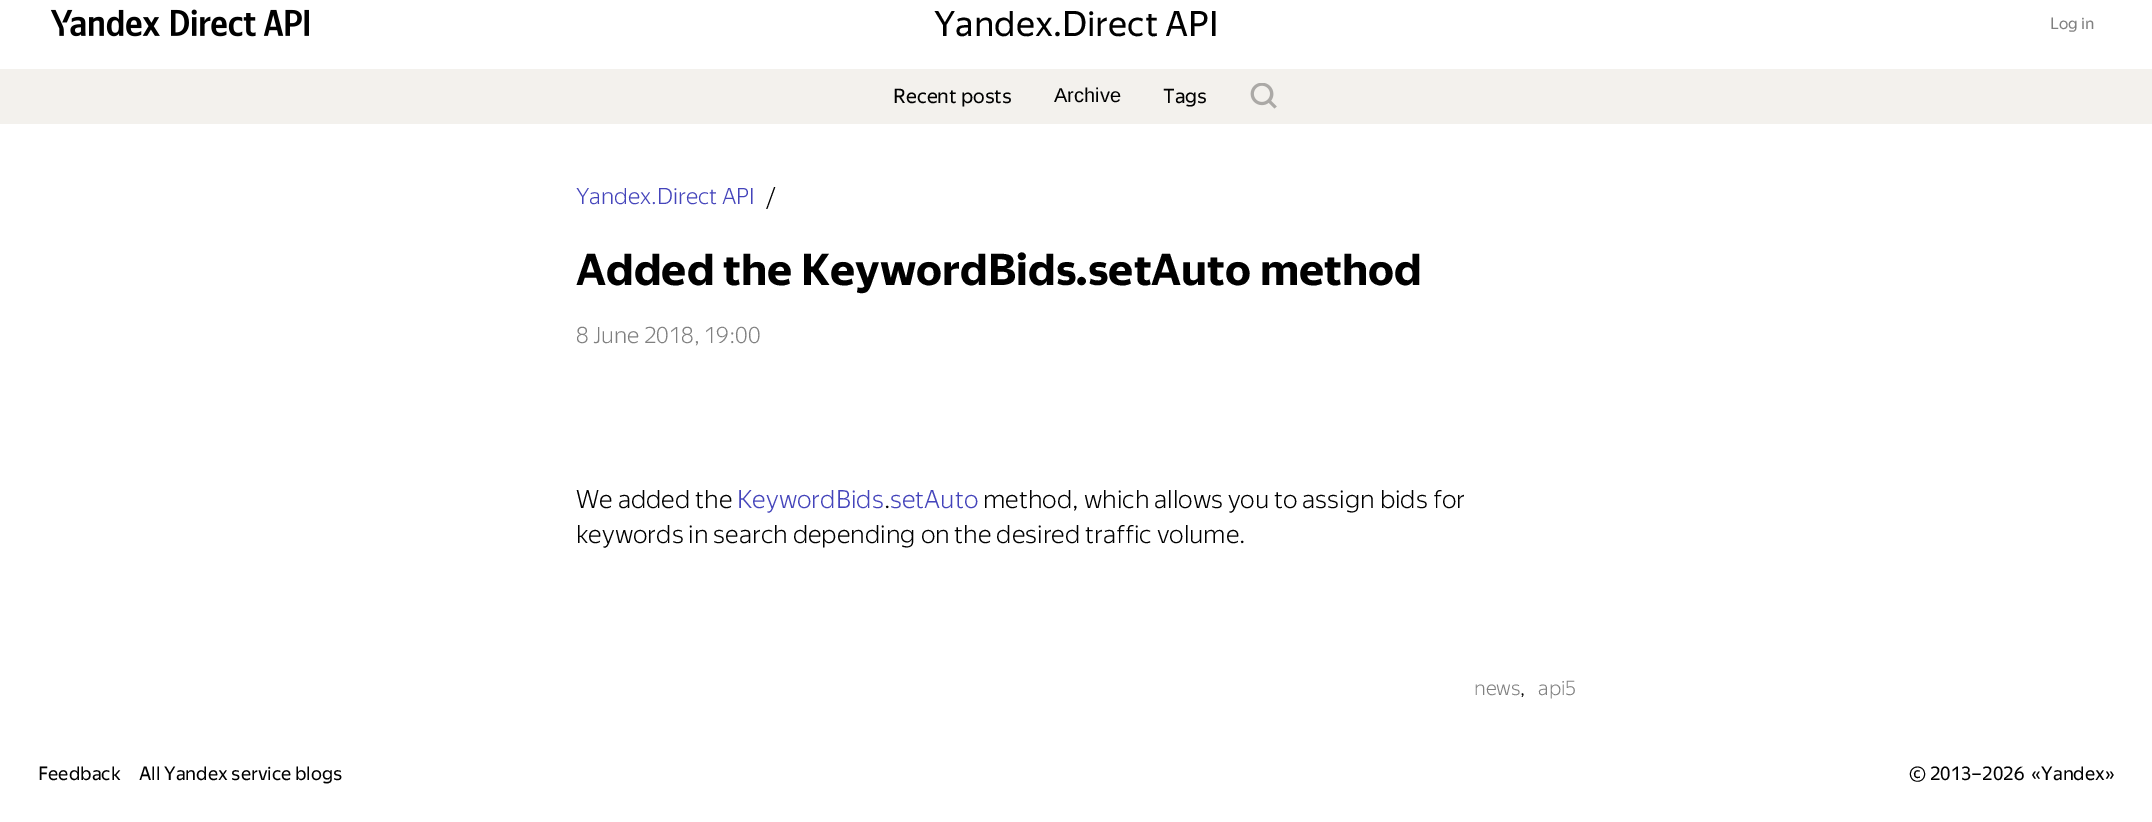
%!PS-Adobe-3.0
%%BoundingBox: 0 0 2152 822
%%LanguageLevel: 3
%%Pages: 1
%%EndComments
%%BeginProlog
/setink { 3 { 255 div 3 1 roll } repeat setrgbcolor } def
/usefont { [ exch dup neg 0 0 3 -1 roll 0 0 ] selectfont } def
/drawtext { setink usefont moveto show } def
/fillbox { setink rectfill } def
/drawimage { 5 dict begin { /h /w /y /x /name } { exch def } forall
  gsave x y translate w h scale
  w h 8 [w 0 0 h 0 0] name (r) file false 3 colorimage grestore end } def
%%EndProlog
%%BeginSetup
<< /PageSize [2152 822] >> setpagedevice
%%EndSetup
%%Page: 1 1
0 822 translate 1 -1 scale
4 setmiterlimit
0 0 2152 822 243 241 237 fillbox
0 0 2152 69 255 255 255 fillbox
(assets/img1.rgb) 50 9 110 28 drawimage
(assets/img2.rgb) 171 9 138 28 drawimage
(Yandex.Direct API) 934 36 /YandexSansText-Regular 35 0 0 0 drawtext
(Log in) 2050 29 /YandexSansText-Regular 16 128 128 128 drawtext
(Recent posts) 893 103 /YandexSansText-Regular 20 0 0 0 drawtext
(Archive) 1054 102 /LiberationSans-Regular 20 0 0 0 drawtext
(Tags) 1163 103 /YandexSansText-Regular 20 0 0 0 drawtext
(assets/img3.rgb) 1250 83 27 26 drawimage
0 124 2152 698 255 255 255 fillbox
(Yandex.Direct API) 576 204 /YandexSansText-Light 22.5 68 68 187 drawtext
(/) 766 206 /YandexSansText-Light 25 0 0 0 drawtext
(Added the KeywordBids.setAuto method) 576 285 /YandexSansText-Bold 43.75 0 0 0 drawtext
(8 June 2018, 19:00) 576 343 /YandexSansText-Light 22.5 128 128 128 drawtext
(We added the) 576 508 /YandexSansText-Light 25 0 0 0 drawtext
(KeywordBids) 737 508 /YandexSansText-Light 25 68 68 187 drawtext
(.) 884 508 /YandexSansText-Light 25 0 0 0 drawtext
(setAuto) 890 508 /YandexSansText-Light 25 68 68 187 drawtext
(method, which allows you to assign bids for) 983 508 /YandexSansText-Light 25 0 0 0 drawtext
(keywords in search depending on the desired traffic volume.) 576 543 /YandexSansText-Light 25 0 0 0 drawtext
(news) 1474 695 /YandexSansText-Light 20 128 128 128 drawtext
(,) 1520 695 /YandexSansText-Light 20 0 0 0 drawtext
(api5) 1538 695 /YandexSansText-Light 20 128 128 128 drawtext
(Feedback) 38 780 /YandexSansText-Regular 18.75 0 0 0 drawtext
(All Yandex service blogs) 139 780 /YandexSansText-Regular 18.75 0 0 0 drawtext
(© 2013–2026  «Yandex») 1909 780 /YandexSansText-Regular 18.75 0 0 0 drawtext
showpage
%%EOF
